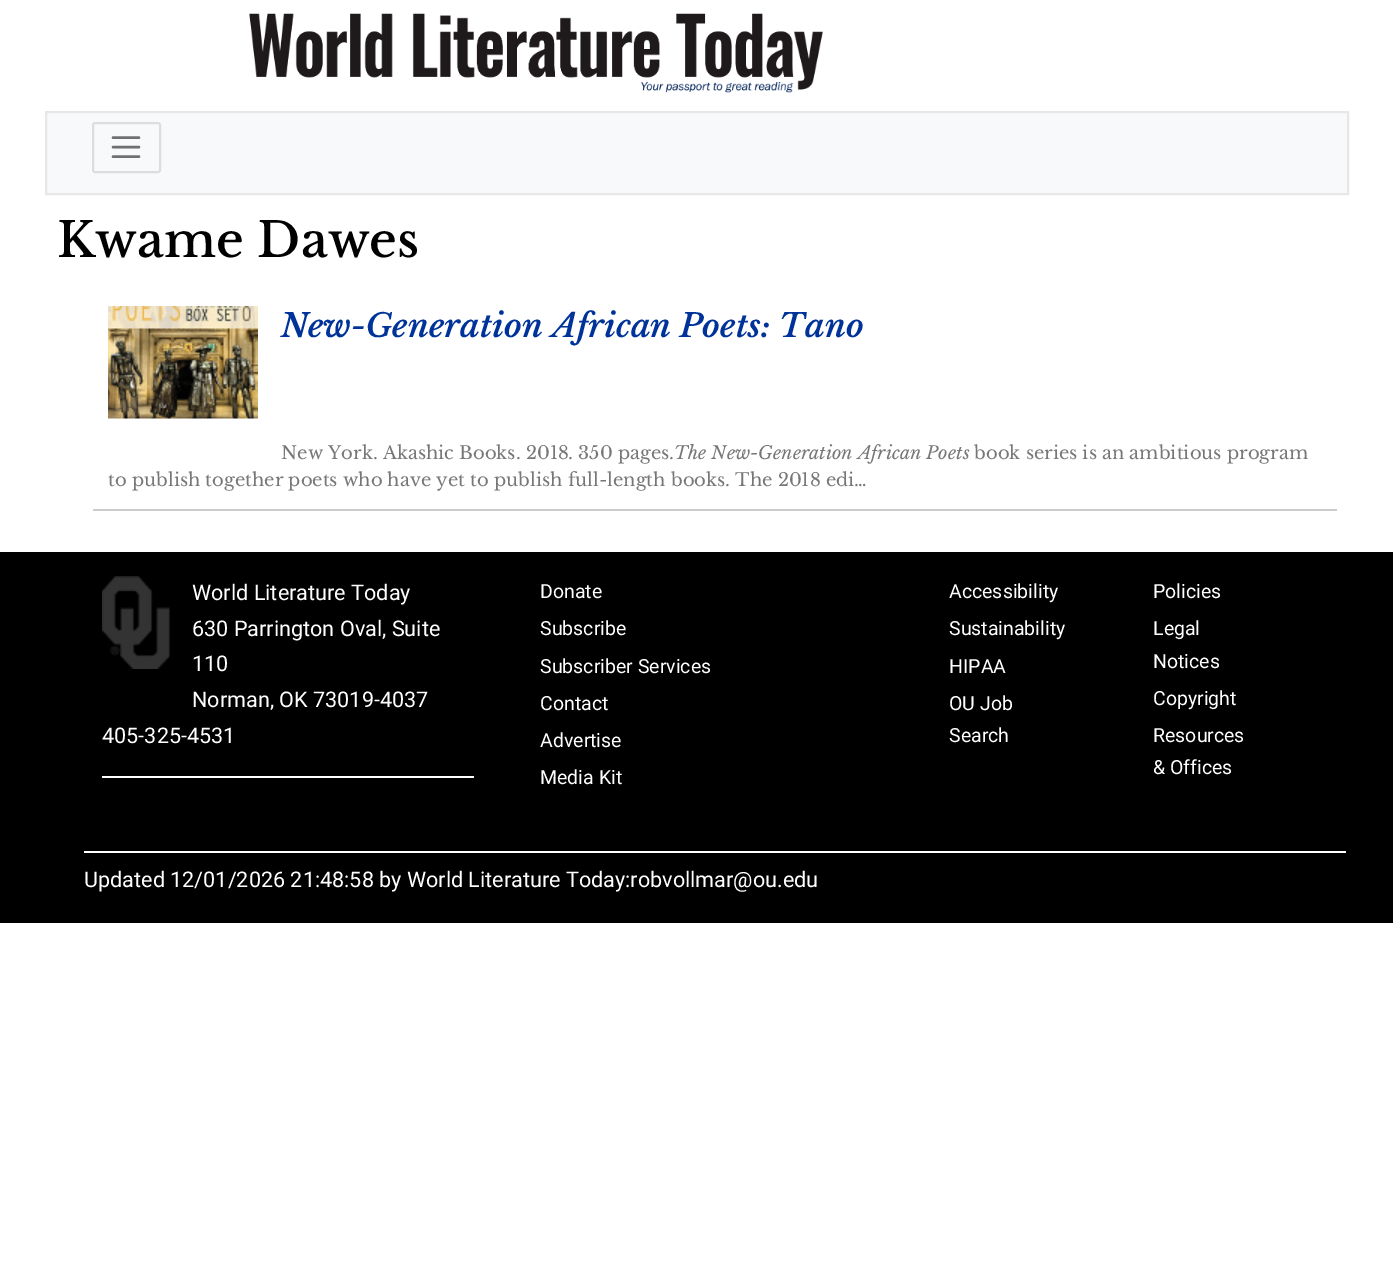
%!PS-Adobe-3.0
%%BoundingBox: 0 0 1393 1284
%%LanguageLevel: 3
%%Pages: 1
%%EndComments
%%BeginProlog
/setink { 3 { 255 div 3 1 roll } repeat setrgbcolor } def
/usefont { [ exch dup neg 0 0 3 -1 roll 0 0 ] selectfont } def
/drawtext { setink usefont moveto show } def
/fillbox { setink rectfill } def
/rrect { 5 dict begin { /r /h /w /y /x } { exch def } forall
  x r add y moveto x w add y 2 copy h add r arct x w add y h add x 1 index r arct
  x y h add x y r arct x y 2 copy exch w add exch r arct closepath end } def
/drawimage { 5 dict begin { /h /w /y /x /name } { exch def } forall
  gsave x y translate w h scale
  w h 8 [w 0 0 h 0 0] name (r) file false 3 colorimage grestore end } def
%%EndProlog
%%BeginSetup
<< /PageSize [1393 1284] >> setpagedevice
%%EndSetup
%%Page: 1 1
0 1284 translate 1 -1 scale
4 setmiterlimit
0 0 1393 1284 255 255 255 fillbox
(assets/img1.rgb) 249 13 574 80 drawimage
248 249 250 setink
46 112 moveto 1348 112 lineto 1348 194 lineto 46 194 lineto closepath gsave fill grestore
231 231 231 setink
2 setlinewidth
stroke
221 221 221 setink
93 123 67 49 2 rrect stroke
112 112 113 setink
2.4 setlinewidth
1 setlinecap
113 137.5 moveto 139 137.5 lineto 113 147 moveto 139 147 lineto 113 156.5 moveto 139 156.5 lineto stroke
(Kwame Dawes) 57 257 /LibreBaskerville-Medium 48 0 0 0 drawtext
93 509 1244 2 204 204 204 fillbox
(assets/img2.rgb) 108 306 150 113 drawimage
(New-Generation African Poets: Tano) 281 337 /LibreBaskerville-SemiBoldItalic 32.4 0 51 153 drawtext
(New York. Akashic Books. 2018. 350 pages.) 281 459 /LibreBaskerville-Regular 18 119 119 119 drawtext
(The New-Generation African Poets) 674 459 /LibreBaskerville-Italic 18 119 119 119 drawtext
(book series is an ambitious program) 974 459 /LibreBaskerville-Regular 18 119 119 119 drawtext
(to publish together poets who have yet to publish full-length books. The 2018 edi…) 108 486 /LibreBaskerville-Regular 18 119 119 119 drawtext
0 552 1393 371 0 0 0 fillbox
(assets/img3.rgb) 102 576 68 93 drawimage
(World Literature Today) 192 600 /Roboto-Regular 21.6 255 255 255 drawtext
(630 Parrington Oval, Suite) 192 636 /Roboto-Regular 21.6 255 255 255 drawtext
(110) 192 671 /Roboto-Regular 21.6 255 255 255 drawtext
(Norman, OK 73019-4037) 192 707 /Roboto-Regular 21.6 255 255 255 drawtext
(405-325-4531) 102 743 /Roboto-Regular 21.6 255 255 255 drawtext
102 776 372 2 255 255 255 fillbox
(Donate) 540 598 /Roboto-Regular 19.5 255 255 255 drawtext
(Subscribe) 540 635 /Roboto-Regular 19.5 255 255 255 drawtext
(Subscriber Services) 540 673 /Roboto-Regular 19.5 255 255 255 drawtext
(Contact) 540 710 /Roboto-Regular 19.5 255 255 255 drawtext
(Advertise) 540 747 /Roboto-Regular 19.5 255 255 255 drawtext
(Media Kit) 540 784 /Roboto-Regular 19.5 255 255 255 drawtext
(Accessibility) 949 598 /Roboto-Regular 19.5 255 255 255 drawtext
(Sustainability) 949 635 /Roboto-Regular 19.5 255 255 255 drawtext
(HIPAA) 949 673 /Roboto-Regular 19.5 255 255 255 drawtext
(OU Job) 949 710 /Roboto-Regular 19.5 255 255 255 drawtext
(Search) 949 742 /Roboto-Regular 19.5 255 255 255 drawtext
(Policies) 1153 598 /Roboto-Regular 19.5 255 255 255 drawtext
(Legal) 1153 635 /Roboto-Regular 19.5 255 255 255 drawtext
(Notices) 1153 668 /Roboto-Regular 19.5 255 255 255 drawtext
(Copyright) 1153 705 /Roboto-Regular 19.5 255 255 255 drawtext
(Resources) 1153 742 /Roboto-Regular 19.5 255 255 255 drawtext
(& Offices) 1153 774 /Roboto-Regular 19.5 255 255 255 drawtext
84 851 1262 2 255 255 255 fillbox
(Updated 12/01/2026 21:48:58 by World Literature Today:robvollmar@ou.edu) 84 887 /Roboto-Regular 21.6 255 255 255 drawtext
showpage
%%EOF
